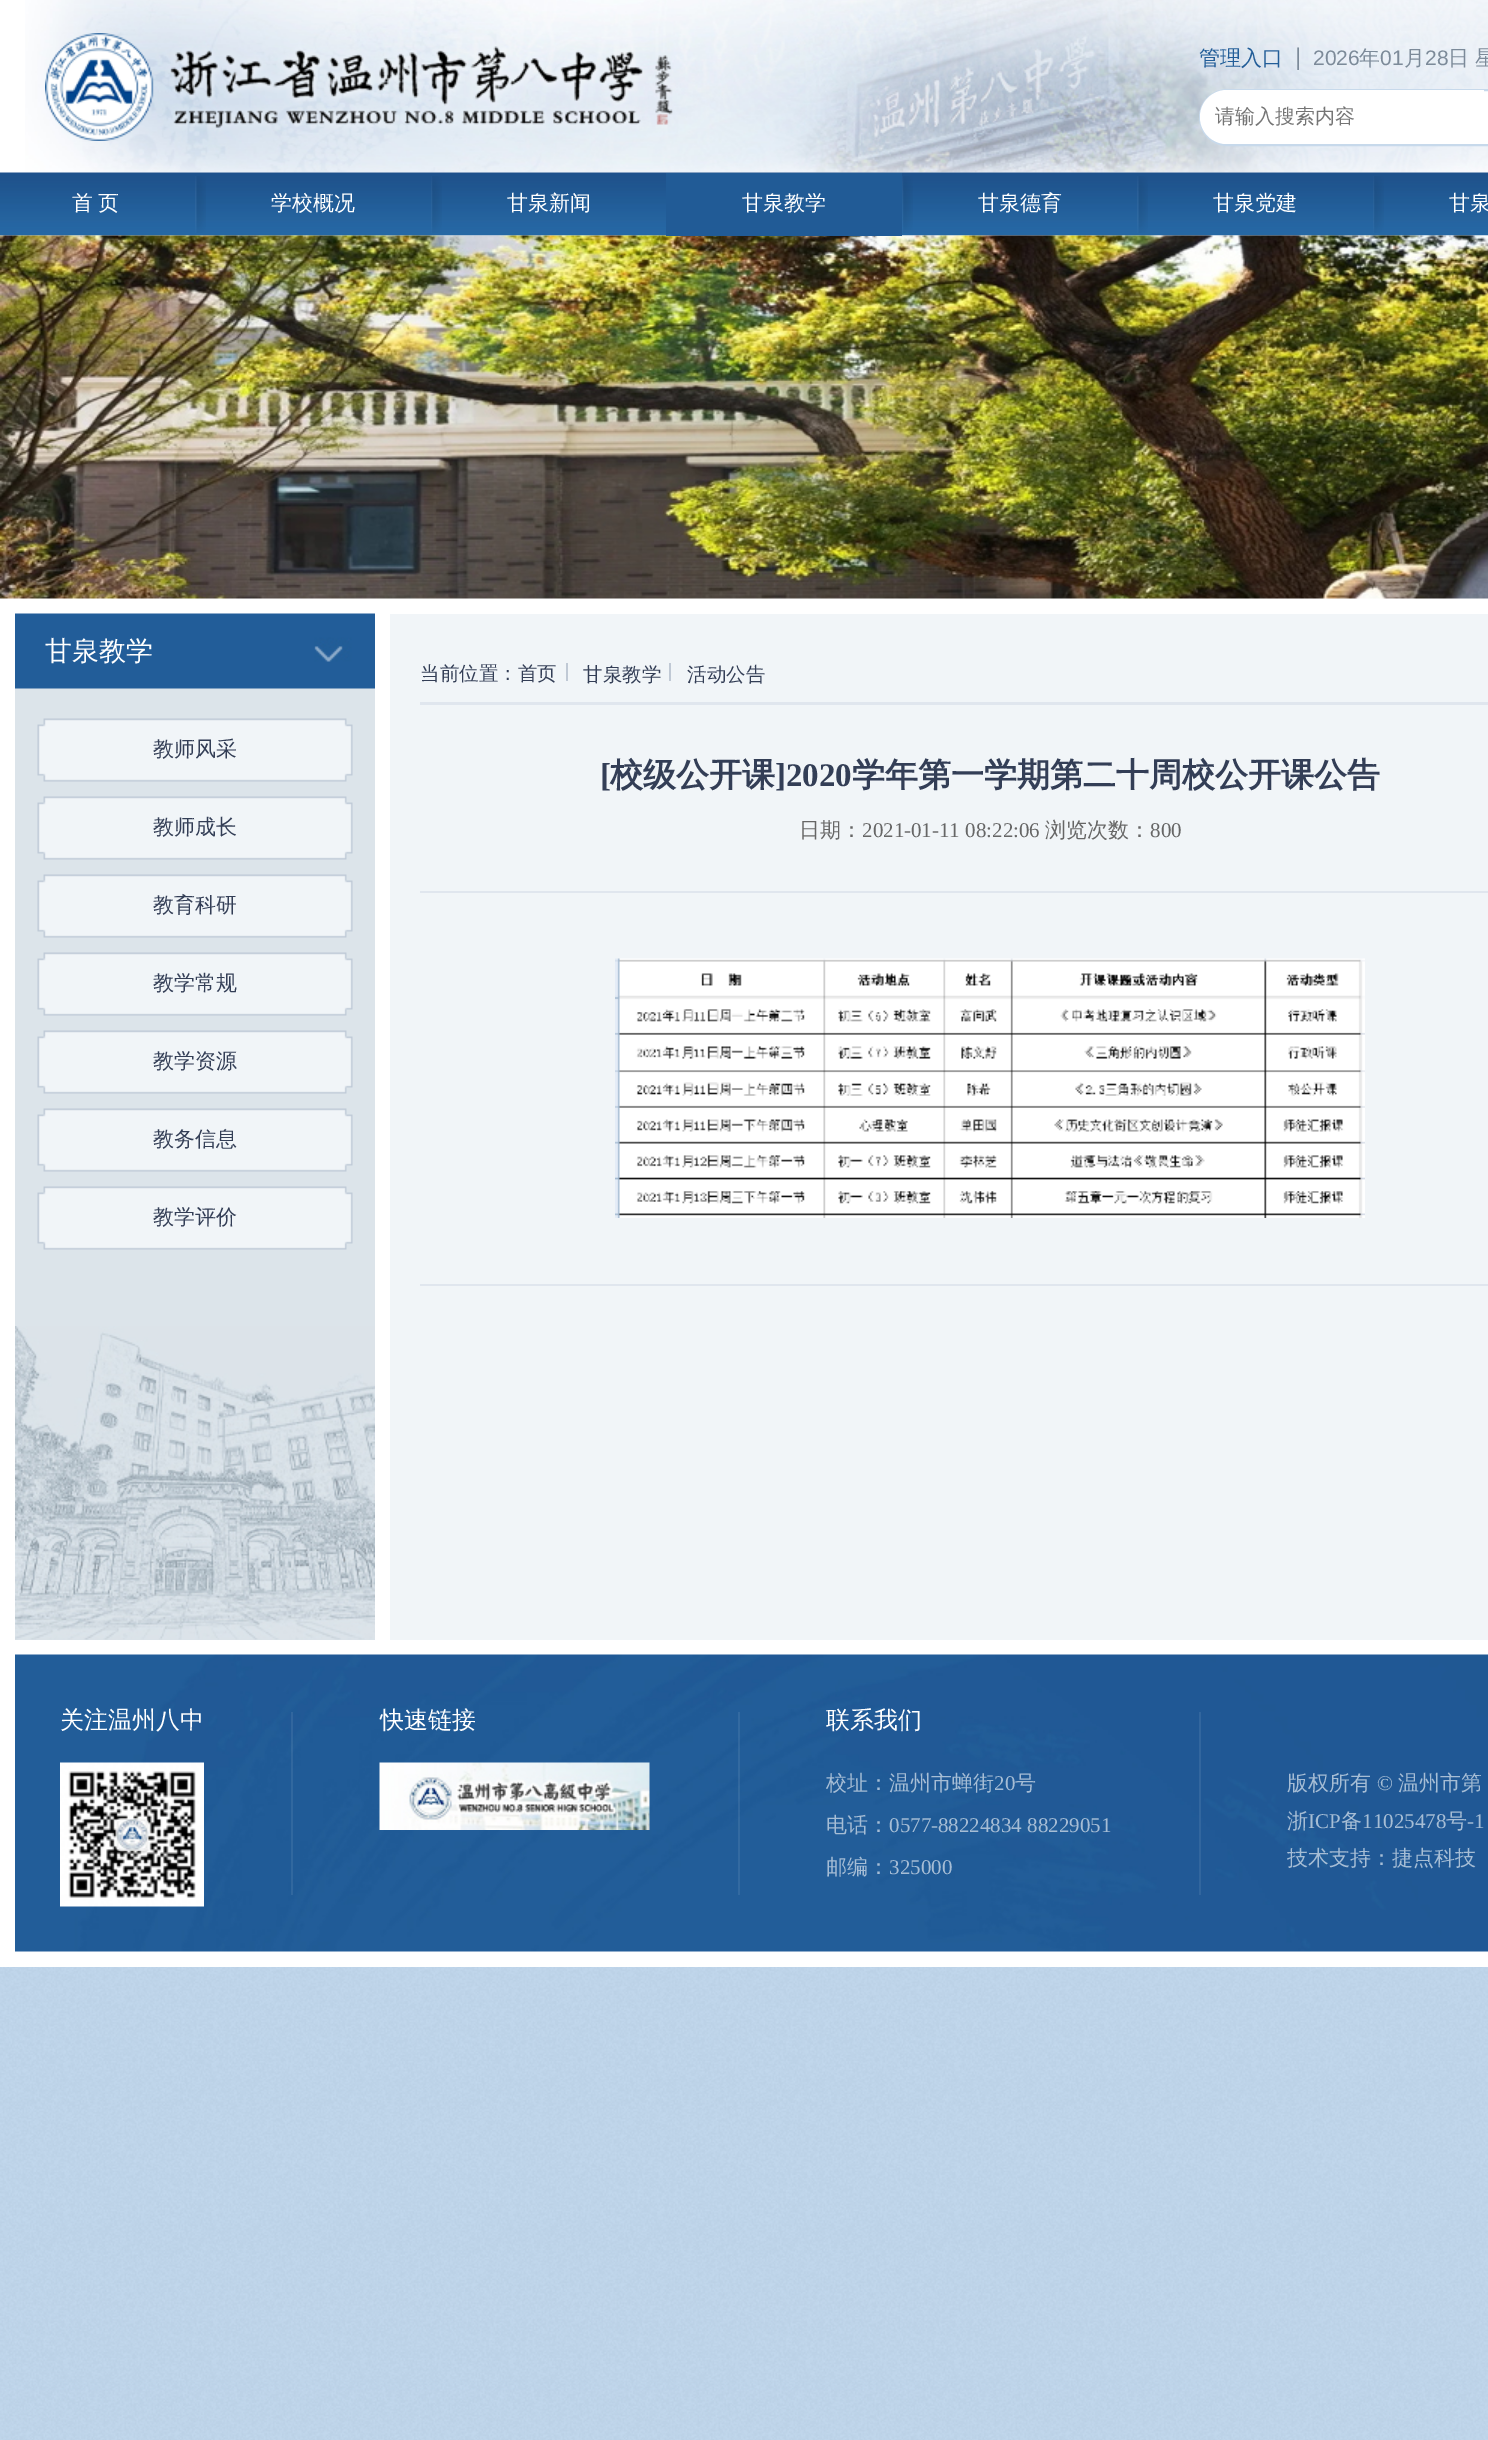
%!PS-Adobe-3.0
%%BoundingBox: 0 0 1488 2440
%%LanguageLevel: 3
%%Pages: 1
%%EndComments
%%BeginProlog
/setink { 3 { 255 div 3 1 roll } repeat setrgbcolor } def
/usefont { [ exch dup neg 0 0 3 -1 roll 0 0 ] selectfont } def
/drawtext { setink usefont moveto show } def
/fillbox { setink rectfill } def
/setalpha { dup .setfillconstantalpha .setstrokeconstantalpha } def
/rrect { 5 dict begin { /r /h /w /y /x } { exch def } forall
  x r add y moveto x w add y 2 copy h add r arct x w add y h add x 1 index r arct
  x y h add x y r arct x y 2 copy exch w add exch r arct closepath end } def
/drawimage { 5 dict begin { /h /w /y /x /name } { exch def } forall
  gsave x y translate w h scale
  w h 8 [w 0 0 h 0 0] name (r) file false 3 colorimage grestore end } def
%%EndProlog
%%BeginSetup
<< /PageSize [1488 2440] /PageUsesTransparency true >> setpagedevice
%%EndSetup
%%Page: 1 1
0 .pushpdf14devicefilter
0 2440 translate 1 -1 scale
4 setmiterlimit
0 0 1488 2440 255 255 255 fillbox
(assets/img1.rgb) 0 1967 1488 473 drawimage
(assets/img2.rgb) 25 0 1463 173 drawimage
(assets/img3.rgb) 45 33 628 108 drawimage
(管理入口) 1199 65 /WenQuanYiZenHei-Medium 21 34 93 152 drawtext
(|) 1295 65 /LiberationSans-Regular 24 124 138 153 drawtext
(2026) 1313 65 /LiberationSans-Regular 21 124 138 153 drawtext
(年) 1359 65 /WenQuanYiZenHei-Medium 21 124 138 153 drawtext
(01) 1380 65 /LiberationSans-Regular 21 124 138 153 drawtext
(月) 1404 65 /WenQuanYiZenHei-Medium 21 124 138 153 drawtext
(28) 1425 65 /LiberationSans-Regular 21 124 138 153 drawtext
(日 星) 1448 65 /WenQuanYiZenHei-Medium 21 124 138 153 drawtext
255 255 255 setink
1200 90 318 55 27.5 rrect gsave fill grestore
199 217 235 setink
2 setlinewidth
stroke
255 255 255 setink
1227 90 moveto 1484 90 lineto 1484 144 lineto 1227 144 lineto 1212 144 1200 132 1200 117 curveto 1200 102 1212 90 1227 90 curveto closepath fill
(请输入搜索内容) 1215 123 /WenQuanYiZenHei-Medium 20 117 117 117 drawtext
(assets/img4.rgb) 0 172 1488 64 drawimage
/WenQuanYiZenHei-Medium 21 usefont
255 255 255 setink
72 210 moveto -1 0 32 (首 页) widthshow
(assets/img5.rgb) 195 176 11 57 drawimage
(学校概况) 271 210 /WenQuanYiZenHei-Medium 21 255 255 255 drawtext
(assets/img6.rgb) 431 176 11 57 drawimage
(甘泉新闻) 507 210 /WenQuanYiZenHei-Medium 21 255 255 255 drawtext
(assets/img9.rgb) 0 235 1488 364 drawimage
666 173 236 63 33 91 150 fillbox
(甘泉教学) 742 210 /WenQuanYiZenHei-Medium 21 255 255 255 drawtext
(assets/img7.rgb) 902 176 11 57 drawimage
(甘泉德育) 978 210 /WenQuanYiZenHei-Medium 21 255 255 255 drawtext
(assets/img8.rgb) 1137 176 11 57 drawimage
(甘泉党建) 1213 210 /WenQuanYiZenHei-Medium 21 255 255 255 drawtext
(assets/img6.rgb) 1373 176 11 57 drawimage
(甘泉) 1449 210 /WenQuanYiZenHei-Medium 21 255 255 255 drawtext
15 688 360 952 220 228 234 fillbox
(assets/img10.rgb) 15 1326 360 314 drawimage
(assets/img11.rgb) 15 613 360 76 drawimage
(甘泉教学) 45 660 /WenQuanYiZenHei-Medium 27 255 255 255 drawtext
(assets/img12.rgb) 37 718 316 64 drawimage
(教师风采) 153 756 /WenQuanYiZenHei-Medium 21 51 62 86 drawtext
(assets/img12.rgb) 37 796 316 64 drawimage
(教师成长) 153 834 /WenQuanYiZenHei-Medium 21 51 62 86 drawtext
(assets/img12.rgb) 37 874 316 64 drawimage
(教育科研) 153 912 /WenQuanYiZenHei-Medium 21 51 62 86 drawtext
(assets/img12.rgb) 37 952 316 64 drawimage
(教学常规) 153 990 /WenQuanYiZenHei-Medium 21 51 62 86 drawtext
(assets/img12.rgb) 37 1030 316 64 drawimage
(教学资源) 153 1068 /WenQuanYiZenHei-Medium 21 51 62 86 drawtext
(assets/img12.rgb) 37 1108 316 64 drawimage
(教务信息) 153 1146 /WenQuanYiZenHei-Medium 21 51 62 86 drawtext
(assets/img12.rgb) 37 1186 316 64 drawimage
(教学评价) 153 1224 /WenQuanYiZenHei-Medium 21 51 62 86 drawtext
390 614 1098 1026 241 245 248 fillbox
(当前位置：首页) 420 680 /WenQuanYiZenHei-Medium 19.5 51 62 86 drawtext
566 663 2 18 192 201 213 fillbox
(甘泉教学) 583 681 /WenQuanYiZenHei-Medium 19.5 51 62 86 drawtext
669 663 2 18 192 201 213 fillbox
(活动公告) 687 681 /WenQuanYiZenHei-Medium 19.5 51 62 86 drawtext
420 702 1068 3 224 230 238 fillbox
420 891 1068 2 224 230 238 fillbox
([) 600 786 /LiberationSerif-Bold 33 51 62 86 drawtext
(校级公开课) 610 786 /WenQuanYiZenHei-Bold 33 51 62 86 drawtext
(]2020) 775 786 /LiberationSerif-Bold 33 51 62 86 drawtext
(学年第一学期第二十周校公开课公告) 852 786 /WenQuanYiZenHei-Bold 33 51 62 86 drawtext
(日期：) 799 837 /WenQuanYiZenHei-Medium 21 102 102 102 drawtext
(2021-01-11 08:22:06) 862 837 /LiberationSerif-Regular 21 102 102 102 drawtext
(浏览次数：) 1045 837 /WenQuanYiZenHei-Medium 21 102 102 102 drawtext
(800) 1150 837 /LiberationSerif-Regular 21 102 102 102 drawtext
420 1284 1068 2 224 230 238 fillbox
(assets/img13.rgb) 615 958 750 260 drawimage
(assets/img14.rgb) 15 1654 1473 298 drawimage
(关注温州八中) 60 1728 /WenQuanYiZenHei-Medium 24 255 255 255 drawtext
(assets/img15.rgb) 60 1762 144 145 drawimage
0.08 setalpha
291 1712 2 183 255 255 255 fillbox
1 setalpha
(快速链接) 380 1728 /WenQuanYiZenHei-Medium 24 255 255 255 drawtext
(assets/img16.rgb) 379 1762 271 68 drawimage
0.08 setalpha
738 1712 2 183 255 255 255 fillbox
1 setalpha
(联系我们) 826 1728 /WenQuanYiZenHei-Medium 24 255 255 255 drawtext
(校址：温州市蝉街) 826 1790 /WenQuanYiZenHei-Medium 21 166 189 213 drawtext
(20) 994 1790 /LiberationSerif-Regular 21 166 189 213 drawtext
(号) 1015 1790 /WenQuanYiZenHei-Medium 21 166 189 213 drawtext
(电话：) 826 1832 /WenQuanYiZenHei-Medium 21 166 189 213 drawtext
(0577-88224834 88229051) 889 1832 /LiberationSerif-Regular 21 166 189 213 drawtext
(邮编：) 826 1874 /WenQuanYiZenHei-Medium 21 166 189 213 drawtext
(325000) 889 1874 /LiberationSerif-Regular 21 166 189 213 drawtext
1199 1712 2 183 50 102 158 fillbox
(版权所有) 1287 1790 /WenQuanYiZenHei-Medium 21 166 189 213 drawtext
(©) 1377 1790 /LiberationSerif-Regular 21 166 189 213 drawtext
(温州市第) 1398 1790 /WenQuanYiZenHei-Medium 21 166 189 213 drawtext
(浙) 1287 1828 /WenQuanYiZenHei-Medium 21 166 189 213 drawtext
(ICP) 1308 1828 /LiberationSerif-Regular 21 166 189 213 drawtext
(备) 1341 1828 /WenQuanYiZenHei-Medium 21 166 189 213 drawtext
(11025478) 1362 1828 /LiberationSerif-Regular 21 166 189 213 drawtext
(号) 1446 1828 /WenQuanYiZenHei-Medium 21 166 189 213 drawtext
(-1) 1467 1828 /LiberationSerif-Regular 21 166 189 213 drawtext
(技术支持：) 1287 1865 /WenQuanYiZenHei-Medium 21 166 189 213 drawtext
(捷点科技) 1392 1865 /WenQuanYiZenHei-Medium 21 166 189 213 drawtext
.poppdf14devicefilter showpage
%%EOF
